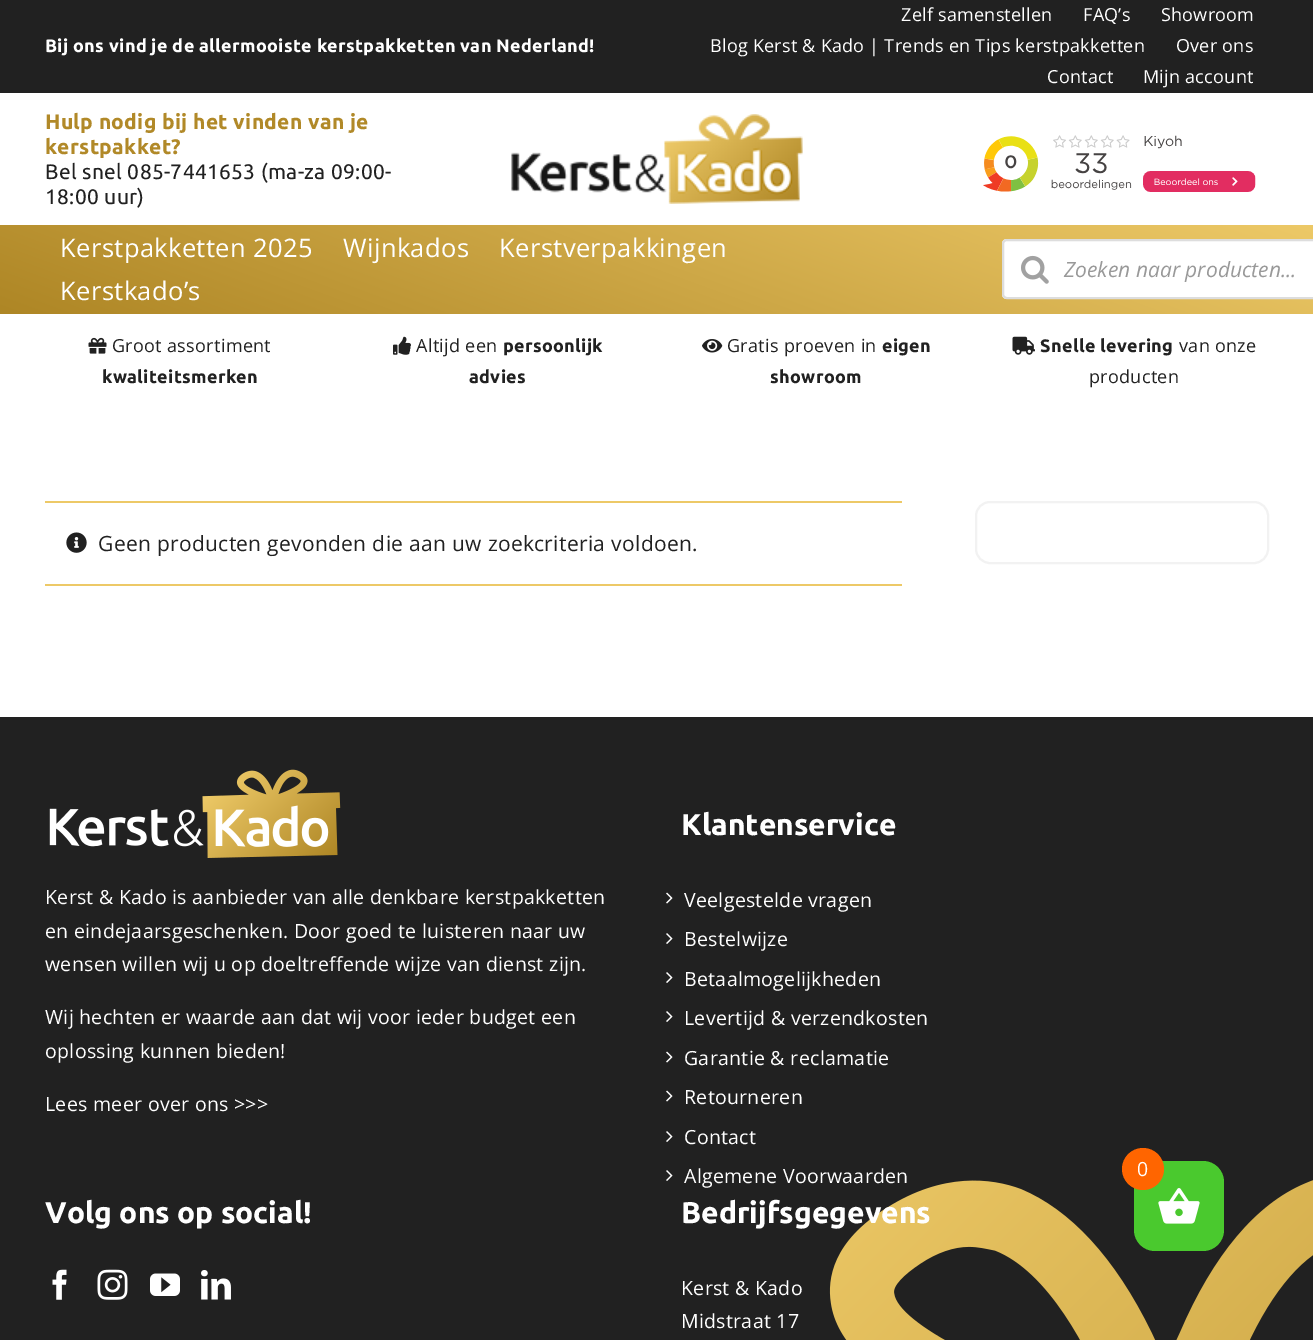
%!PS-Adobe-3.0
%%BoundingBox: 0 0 1313 1340
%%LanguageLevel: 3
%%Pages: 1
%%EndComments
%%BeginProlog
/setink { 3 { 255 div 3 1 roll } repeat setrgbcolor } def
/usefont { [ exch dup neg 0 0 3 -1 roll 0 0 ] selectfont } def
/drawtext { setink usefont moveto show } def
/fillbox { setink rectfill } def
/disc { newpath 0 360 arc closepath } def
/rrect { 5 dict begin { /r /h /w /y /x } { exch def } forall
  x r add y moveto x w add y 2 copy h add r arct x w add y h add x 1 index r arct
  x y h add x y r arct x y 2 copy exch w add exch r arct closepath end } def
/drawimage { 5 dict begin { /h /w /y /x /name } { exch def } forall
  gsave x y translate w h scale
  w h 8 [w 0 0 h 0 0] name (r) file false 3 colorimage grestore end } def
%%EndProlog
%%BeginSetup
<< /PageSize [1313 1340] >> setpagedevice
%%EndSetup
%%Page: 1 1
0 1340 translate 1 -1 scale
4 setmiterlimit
0 0 1313 1340 255 255 255 fillbox
0 0 1313 93 33 33 33 fillbox
/Ubuntu-Bold 18 usefont
255 255 255 setink
45 52 moveto 0.32 0 (Bij ons vind je de allermooiste kerstpakketten van Nederland!) ashow
/OpenSans-Regular 18 usefont
901 21 moveto 0.25 0 (Zelf samenstellen) ashow
1083 21 moveto 0.25 0 (FAQ’s) ashow
1161 21 moveto 0.25 0 (Showroom) ashow
710 52 moveto 0.25 0 (Blog Kerst & Kado | Trends en Tips kerstpakketten) ashow
1176 52 moveto 0.25 0 (Over ons) ashow
1047 83 moveto 0.25 0 (Contact) ashow
1143 83 moveto 0.25 0 (Mijn account) ashow
/Ubuntu-Bold 21 usefont
177 137 40 setink
45 129 moveto 0.32 0 (Hulp nodig bij het vinden van je) ashow
45 154 moveto 0.32 0 (kerstpakket?) ashow
/Ubuntu-Regular 21 usefont
33 33 33 setink
45 179 moveto 0.32 0 (Bel snel 085-7441653 \(ma-za 09:00-) ashow
45 204 moveto 0.32 0 (18:00 uur\)) ashow
(assets/img1.rgb) 511 114 292 90 drawimage
(assets/img2.rgb) 983 135 273 57 drawimage
gsave 0 225 moveto 1313 225 lineto 1313 314 lineto 0 314 lineto closepath clip newpath
<< /ShadingType 2 /ColorSpace /DeviceRGB /Coords [748 19 566 519] /Extend [true true] /Function << /FunctionType 2 /Domain [0 1] /C0 [0.929 0.788 0.404] /C1 [0.682 0.525 0.145] /N 1 >> >> shfill grestore
/OpenSans-Regular 25.5 usefont
255 255 255 setink
60 257 moveto 0.4 0 (Kerstpakketten 2025) ashow
343 257 moveto 0.4 0 (Wijnkados) ashow
499 257 moveto 0.4 0 (Kerstverpakkingen) ashow
60 300 moveto 0.4 0 (Kerstkado’s) ashow
1007 239 moveto 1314 239 lineto 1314 299 lineto 1007 299 lineto 1004 299 1002 297 1002 294 curveto 1002 244 lineto 1002 241 1004 239 1007 239 curveto closepath fill
221 221 221 setink
2 setlinewidth
1003 240 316 58 4 rrect stroke
(assets/img3.rgb) 1021 255 28 29 drawimage
(Zoeken naar producten...) 1064 277 /OpenSans-Italic 21 153 153 153 drawtext
(assets/img4.rgb) 88 337 19 17 drawimage
/OpenSans-Regular 18 usefont
33 33 33 setink
112 352 moveto 0.32 0 (Groot assortiment) ashow
/Ubuntu-Bold 18 usefont
102 383 moveto 0.32 0 (kwaliteitsmerken) ashow
(assets/img5.rgb) 393 336 18 19 drawimage
/OpenSans-Regular 18 usefont
416 352 moveto 0.32 0 (Altijd een) ashow
/Ubuntu-Bold 18 usefont
503 352 moveto 0.32 0 (persoonlijk) ashow
469 383 moveto 0.32 0 (advies) ashow
(assets/img6.rgb) 702 339 21 14 drawimage
/OpenSans-Regular 18 usefont
727 352 moveto 0.32 0 (Gratis proeven in) ashow
/Ubuntu-Bold 18 usefont
882 352 moveto 0.32 0 (eigen) ashow
770 383 moveto 0.32 0 (showroom) ashow
(assets/img7.rgb) 1012 336 23 19 drawimage
1040 352 moveto 0.32 0 (Snelle levering) ashow
/OpenSans-Regular 18 usefont
1179 352 moveto 0.32 0 (van onze) ashow
1089 383 moveto 0.32 0 (producten) ashow
45 501 857 2 237 201 103 fillbox
45 584 857 2 237 201 103 fillbox
(assets/img8.rgb) 66 532 21 21 drawimage
/OpenSans-Regular 21 usefont
33 33 33 setink
98 551 moveto 0.32 0 (Geen producten gevonden die aan uw zoekcriteria voldoen.) ashow
242 242 242 setink
976 502 292 61 14 rrect stroke
0 717 1313 623 33 33 33 fillbox
(assets/img9.rgb) 829 1180 484 160 drawimage
(assets/img10.rgb) 49 769 292 89 drawimage
/OpenSans-Regular 19.5 usefont
255 255 255 setink
45 904 moveto 0.32 0 (Kerst & Kado is aanbieder van alle denkbare kerstpakketten) ashow
45 938 moveto 0.32 0 (en eindejaarsgeschenken. Door goed te luisteren naar uw) ashow
45 971 moveto 0.32 0 (wensen willen wij u op doeltreffende wijze van dienst zijn.) ashow
45 1024 moveto 0.32 0 (Wij hechten er waarde aan dat wij voor ieder budget een) ashow
45 1058 moveto 0.32 0 (oplossing kunnen bieden!) ashow
45 1111 moveto 0.32 0 (Lees meer over ons >>>) ashow
(Klantenservice) 681 835 /Ubuntu-Bold 30 255 255 255 drawtext
(assets/img11.rgb) 666 892 7 12 drawimage
/OpenSans-Regular 19.5 usefont
684 907 moveto 0.32 0 (Veelgestelde vragen) ashow
(assets/img12.rgb) 666 933 7 11 drawimage
684 946 moveto 0.32 0 (Bestelwijze) ashow
(assets/img12.rgb) 666 972 7 11 drawimage
684 986 moveto 0.32 0 (Betaalmogelijkheden) ashow
(assets/img12.rgb) 666 1011 7 11 drawimage
684 1025 moveto 0.32 0 (Levertijd & verzendkosten) ashow
(assets/img11.rgb) 666 1051 7 12 drawimage
684 1065 moveto 0.32 0 (Garantie & reclamatie) ashow
(assets/img11.rgb) 666 1090 7 12 drawimage
684 1104 moveto 0.32 0 (Retourneren) ashow
(assets/img12.rgb) 666 1131 7 11 drawimage
684 1144 moveto 0.32 0 (Contact) ashow
(assets/img12.rgb) 666 1170 7 11 drawimage
684 1183 moveto 0.32 0 (Algemene Voorwaarden) ashow
(Volg ons op social!) 45 1223 /Ubuntu-Bold 30 255 255 255 drawtext
(assets/img13.rgb) 52 1269 15 31 drawimage
(assets/img14.rgb) 97 1269 31 31 drawimage
(assets/img15.rgb) 150 1273 30 23 drawimage
(assets/img16.rgb) 201 1270 30 30 drawimage
(Bedrijfsgegevens) 681 1223 /Ubuntu-Bold 30 255 255 255 drawtext
/OpenSans-Regular 19.5 usefont
681 1295 moveto 0.32 0 (Kerst & Kado) ashow
681 1328 moveto 0.32 0 (Midstraat 17) ashow
74 201 46 setink
1134 1161 90 90 21 rrect fill
(assets/img17.rgb) 1158 1188 42 36 drawimage
255 101 0 setink
1143 1169 21 disc fill
255 255 255 setink
1137 1176 moveto 0.32 0 (0) ashow
showpage
%%EOF
